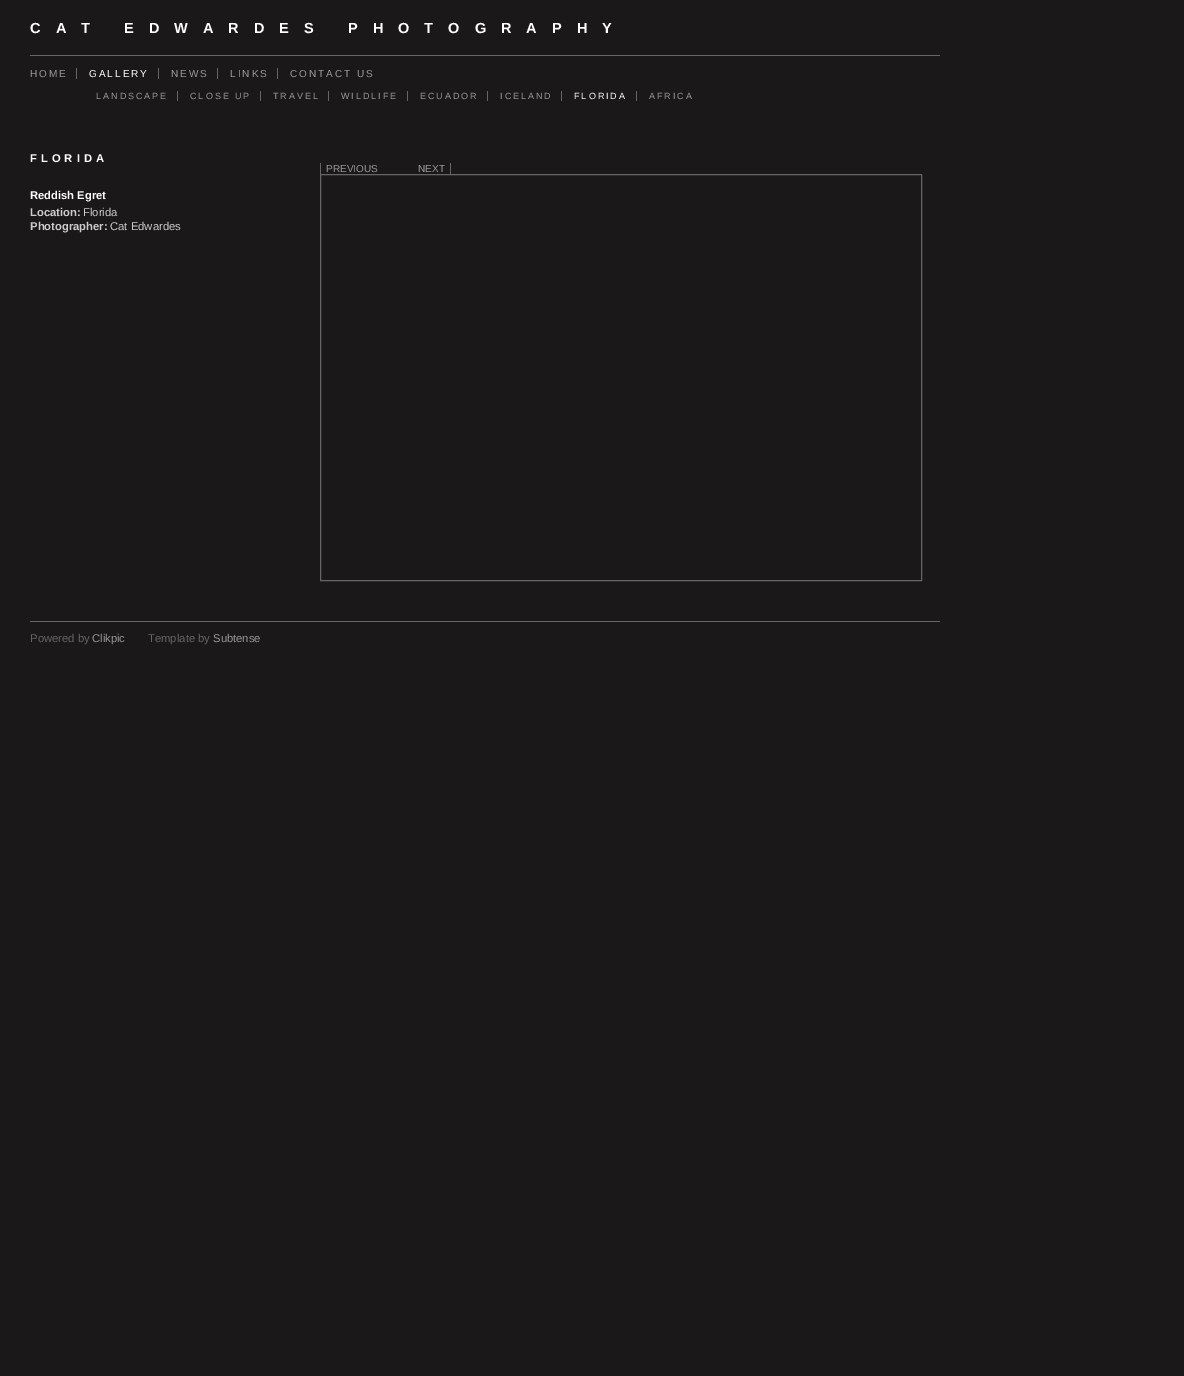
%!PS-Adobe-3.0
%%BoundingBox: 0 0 1184 1376
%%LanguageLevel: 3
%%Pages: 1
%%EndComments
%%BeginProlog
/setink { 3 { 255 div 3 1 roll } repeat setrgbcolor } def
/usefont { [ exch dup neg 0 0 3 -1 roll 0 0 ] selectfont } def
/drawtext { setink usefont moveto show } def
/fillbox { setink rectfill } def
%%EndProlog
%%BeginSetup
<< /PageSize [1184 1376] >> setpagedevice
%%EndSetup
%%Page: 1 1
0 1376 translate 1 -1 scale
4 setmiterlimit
0 0 1184 1376 26 24 24 fillbox
30 55 910 1 102 102 102 fillbox
/LiberationSans-Bold 14.55 usefont
255 255 255 setink
30 33 moveto 15 0 (CAT EDWARDES PHOTOGRAPHY) ashow
/LiberationSans-Regular 10 usefont
153 153 153 setink
30 77 moveto 2 0 (HOME) ashow
76 68 1 11 102 102 102 fillbox
255 255 255 setink
89 77 moveto 2 0 (GALLERY) ashow
158 68 1 11 102 102 102 fillbox
153 153 153 setink
171 77 moveto 2 0 (NEWS) ashow
217 68 1 11 102 102 102 fillbox
153 153 153 setink
230 77 moveto 2 0 (LINKS) ashow
277 68 1 11 102 102 102 fillbox
153 153 153 setink
290 77 moveto 2 0 (CONTACT US) ashow
/LiberationSans-Regular 9 usefont
96 99 moveto 2 0 (LANDSCAPE) ashow
177 91 1 10 102 102 102 fillbox
153 153 153 setink
190 99 moveto 2 0 (CLOSE UP) ashow
260 91 1 10 102 102 102 fillbox
153 153 153 setink
273 99 moveto 2 0 (TRAVEL) ashow
328 91 1 10 102 102 102 fillbox
153 153 153 setink
341 99 moveto 2 0 (WILDLIFE) ashow
407 91 1 10 102 102 102 fillbox
153 153 153 setink
420 99 moveto 2 0 (ECUADOR) ashow
487 91 1 10 102 102 102 fillbox
153 153 153 setink
500 99 moveto 2 0 (ICELAND) ashow
561 91 1 10 102 102 102 fillbox
255 255 255 setink
574 99 moveto 2 0 (FLORIDA) ashow
636 91 1 10 102 102 102 fillbox
153 153 153 setink
649 99 moveto 2 0 (AFRICA) ashow
/LiberationSans-Bold 11.25 usefont
255 255 255 setink
30 162 moveto 4 0 (FLORIDA) ashow
(Reddish Egret) 30 199 /LiberationSans-Bold 11.25 255 255 255 drawtext
(Location:) 30 216 /LiberationSans-Bold 11.25 204 204 204 drawtext
(Florida) 83 216 /LiberationSans-Regular 11.25 204 204 204 drawtext
(Photographer:) 30 230 /LiberationSans-Bold 11.25 204 204 204 drawtext
(Cat Edwardes) 110 230 /LiberationSans-Regular 11.25 204 204 204 drawtext
(PREVIOUS) 326 172 /LiberationSans-Regular 10 153 153 153 drawtext
320 163 1 11 102 102 102 fillbox
(NEXT) 418 172 /LiberationSans-Regular 10 153 153 153 drawtext
450 163 1 11 102 102 102 fillbox
320.5 174.5 601 406 rectstroke
30 621 910 1 102 102 102 fillbox
(Powered by) 30 642 /LiberationSans-Regular 11.25 102 102 102 drawtext
(Clikpic) 92 642 /LiberationSans-Regular 11.25 153 153 153 drawtext
(Template by) 148 642 /LiberationSans-Regular 11.25 102 102 102 drawtext
(Subtense) 213 642 /LiberationSans-Regular 11.25 153 153 153 drawtext
showpage
%%EOF
